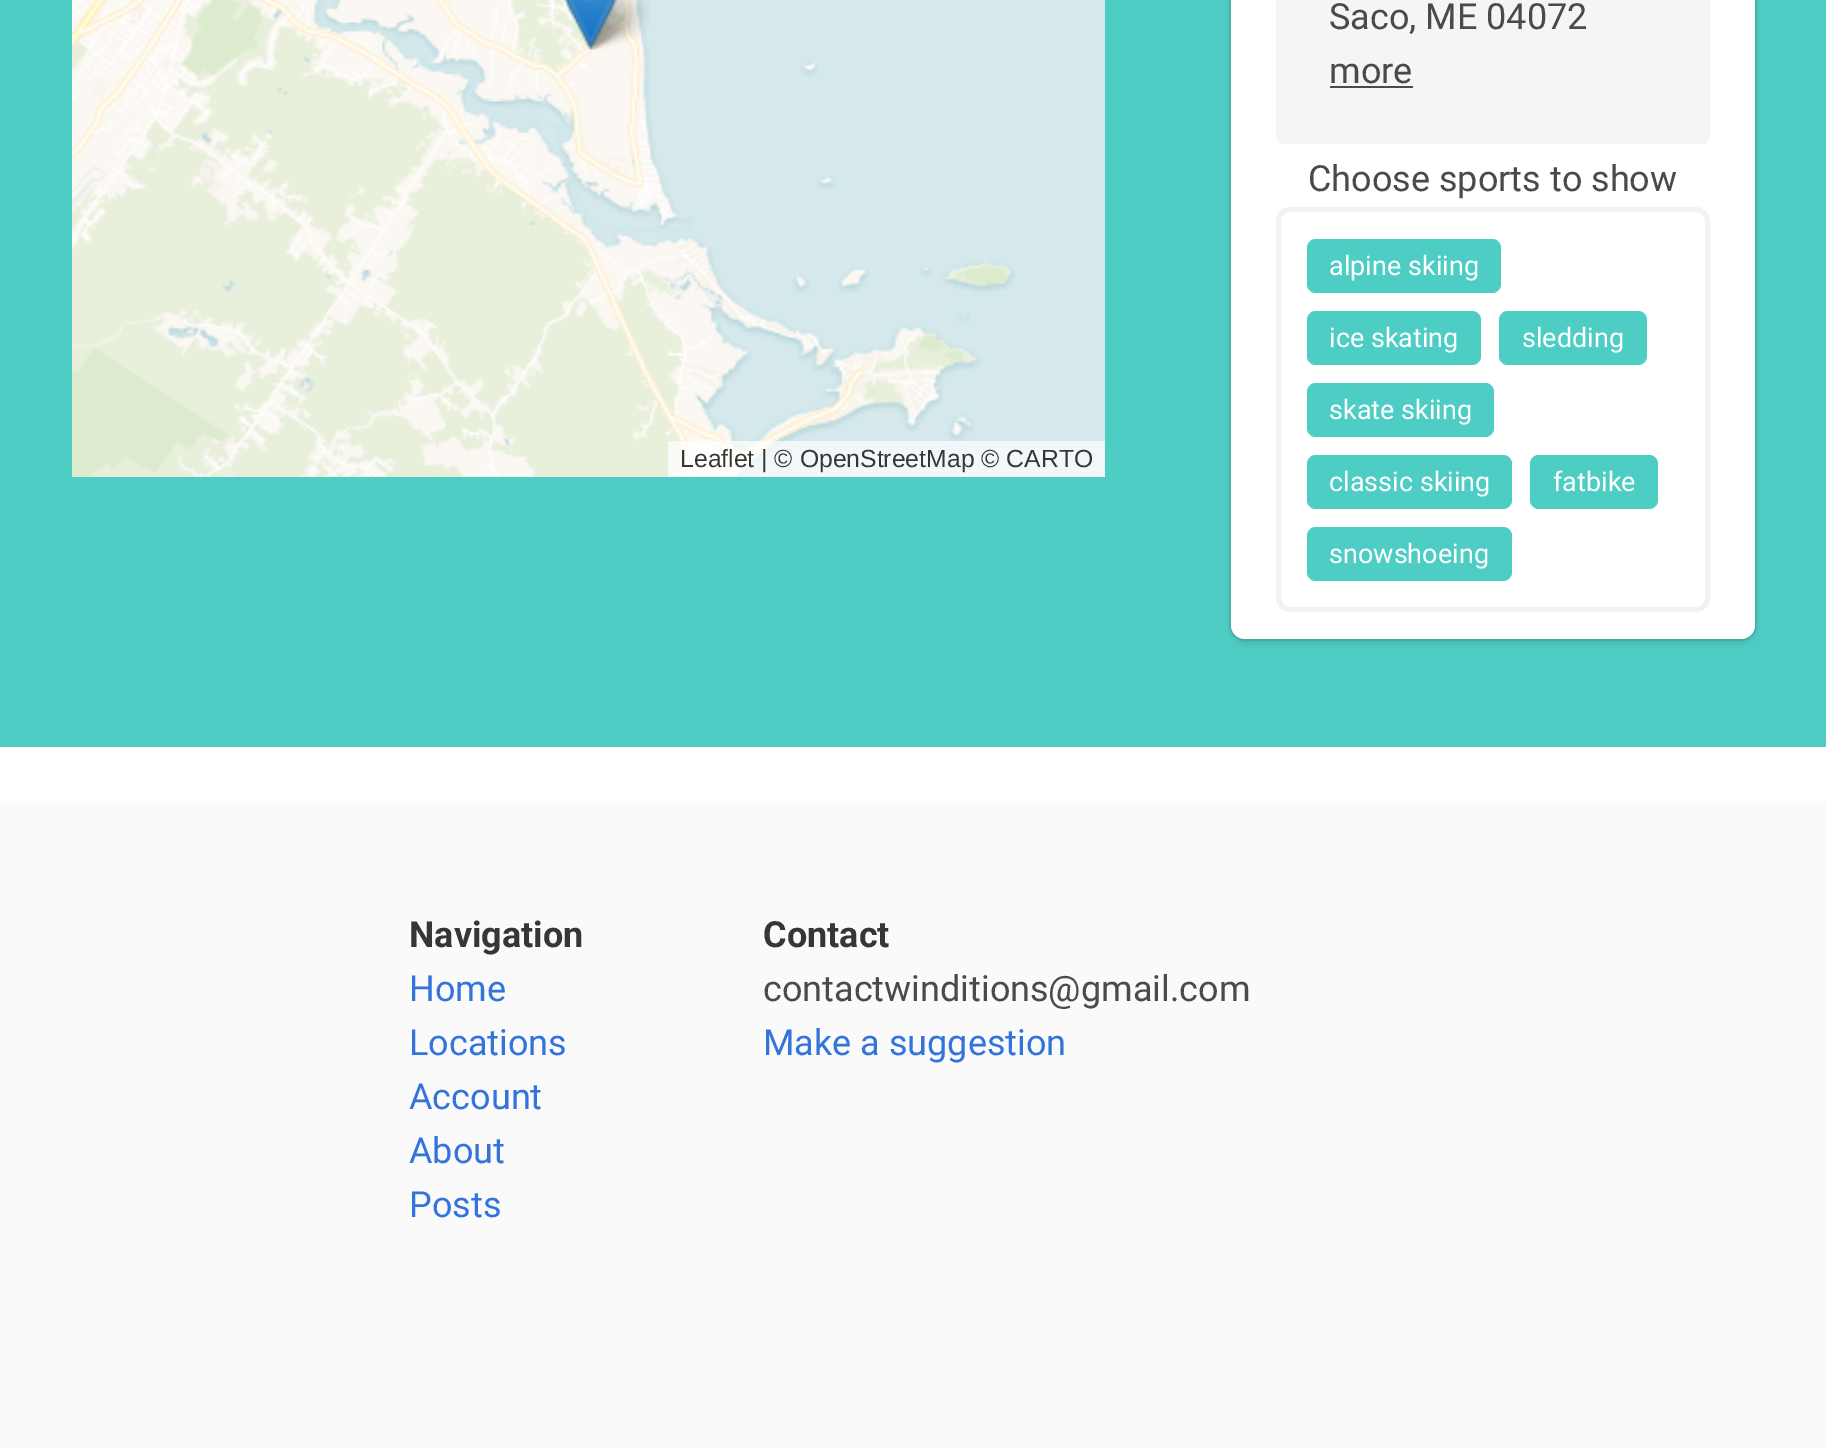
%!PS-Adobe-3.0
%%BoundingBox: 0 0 1826 1448
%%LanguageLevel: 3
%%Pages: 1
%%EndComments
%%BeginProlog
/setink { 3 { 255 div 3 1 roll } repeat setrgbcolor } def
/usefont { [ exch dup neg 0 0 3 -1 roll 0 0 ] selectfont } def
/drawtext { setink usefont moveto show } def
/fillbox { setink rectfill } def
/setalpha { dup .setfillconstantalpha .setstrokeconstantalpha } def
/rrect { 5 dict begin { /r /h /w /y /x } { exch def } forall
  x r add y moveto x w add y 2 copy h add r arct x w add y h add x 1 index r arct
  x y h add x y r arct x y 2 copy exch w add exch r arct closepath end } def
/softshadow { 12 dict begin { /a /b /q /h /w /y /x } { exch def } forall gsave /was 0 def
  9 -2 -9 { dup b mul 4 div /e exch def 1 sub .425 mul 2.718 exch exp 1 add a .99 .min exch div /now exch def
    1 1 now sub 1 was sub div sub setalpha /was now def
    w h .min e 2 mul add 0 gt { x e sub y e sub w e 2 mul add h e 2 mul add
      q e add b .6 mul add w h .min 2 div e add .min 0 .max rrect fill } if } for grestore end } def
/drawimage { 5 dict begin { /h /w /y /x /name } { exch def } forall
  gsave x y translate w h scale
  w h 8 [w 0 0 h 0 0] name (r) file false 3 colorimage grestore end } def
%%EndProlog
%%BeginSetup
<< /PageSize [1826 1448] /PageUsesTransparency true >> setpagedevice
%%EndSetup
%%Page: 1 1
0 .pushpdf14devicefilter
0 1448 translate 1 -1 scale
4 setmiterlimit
0 0 1826 1448 255 255 255 fillbox
0 0 1826 747 78 205 196 fillbox
(assets/img1.rgb) 72 0 468 308 drawimage
(assets/img2.rgb) 540 0 565 308 drawimage
(assets/img3.rgb) 72 308 468 169 drawimage
(assets/img4.rgb) 540 308 565 169 drawimage
(assets/img6.rgb) 583 0 67 50 drawimage
(assets/img5.rgb) 563 0 55 50 drawimage
0.7 setalpha
668 441 437 36 255 255 255 fillbox
1 setalpha
(Leaflet | © OpenStreetMap © CARTO) 680 467 /LiberationSans-Regular 24.75 54 54 54 drawtext
71 186 177 setink
2 setlinewidth
1230 -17 526 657 15 rrect stroke
10 10 10 setink
1231 -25 524 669 14 3.5 0.1 softshadow
255 255 255 setink
1231 -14 524 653 14 rrect fill
245 245 245 setink
1276 -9 434 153 9 rrect fill
(Saco, ME 04072) 1329 29 /Roboto-Regular 36 74 74 74 drawtext
(more) 1329 83 /Roboto-Regular 36 74 74 74 drawtext
1330 86 83 2 74 74 74 fillbox
(Choose sports to show) 1308 191 /Roboto-Regular 36 74 74 74 drawtext
242 242 242 setink
5 setlinewidth
1278.5 209.5 429 400 11.5 rrect stroke
78 205 196 setink
1307 239 194 54 9 rrect fill
(alpine skiing) 1329 275 /Roboto-Regular 27 255 255 255 drawtext
78 205 196 setink
1307 311 174 54 9 rrect fill
(ice skating) 1329 347 /Roboto-Regular 27 255 255 255 drawtext
78 205 196 setink
1499 311 148 54 9 rrect fill
(sledding) 1522 347 /Roboto-Regular 27 255 255 255 drawtext
78 205 196 setink
1307 383 187 54 9 rrect fill
(skate skiing) 1329 419 /Roboto-Regular 27 255 255 255 drawtext
78 205 196 setink
1307 455 205 54 9 rrect fill
(classic skiing) 1329 491 /Roboto-Regular 27 255 255 255 drawtext
78 205 196 setink
1530 455 128 54 9 rrect fill
(fatbike) 1553 491 /Roboto-Regular 27 255 255 255 drawtext
78 205 196 setink
1307 527 205 54 9 rrect fill
(snowshoeing) 1329 563 /Roboto-Regular 27 255 255 255 drawtext
0 801 1826 647 250 250 250 fillbox
(Navigation) 409 947 /Roboto-Bold 36 54 54 54 drawtext
(Home) 409 1001 /Roboto-Regular 36 50 115 220 drawtext
(Locations) 409 1055 /Roboto-Regular 36 50 115 220 drawtext
(Account) 409 1109 /Roboto-Regular 36 50 115 220 drawtext
(About) 409 1163 /Roboto-Regular 36 50 115 220 drawtext
(Posts) 409 1217 /Roboto-Regular 36 50 115 220 drawtext
(Contact) 763 947 /Roboto-Bold 36 54 54 54 drawtext
(contactwinditions@gmail.com) 763 1001 /Roboto-Regular 36 74 74 74 drawtext
(Make a suggestion) 763 1055 /Roboto-Regular 36 50 115 220 drawtext
.poppdf14devicefilter showpage
%%EOF
